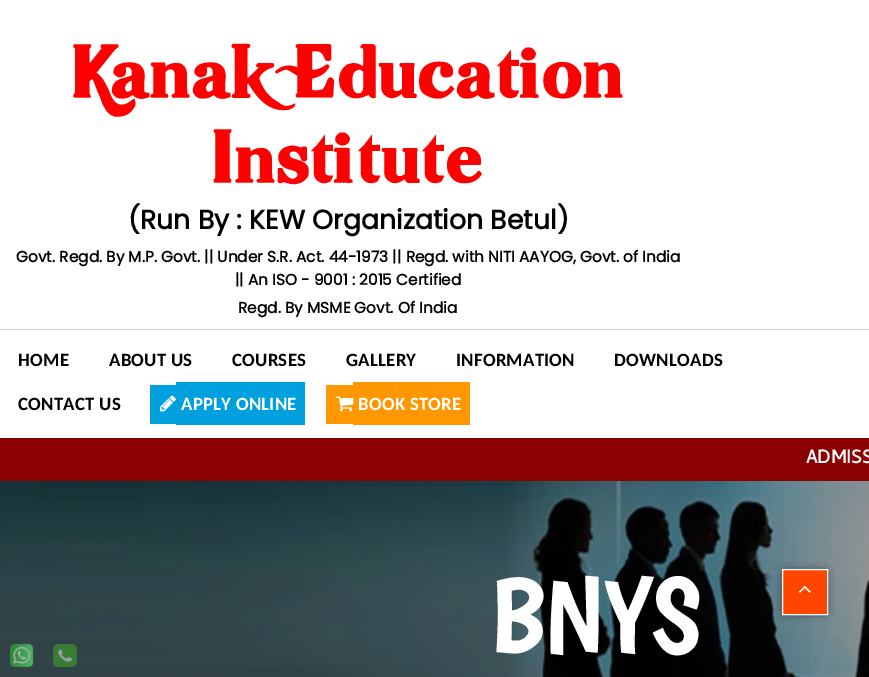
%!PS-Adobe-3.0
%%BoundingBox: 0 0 869 677
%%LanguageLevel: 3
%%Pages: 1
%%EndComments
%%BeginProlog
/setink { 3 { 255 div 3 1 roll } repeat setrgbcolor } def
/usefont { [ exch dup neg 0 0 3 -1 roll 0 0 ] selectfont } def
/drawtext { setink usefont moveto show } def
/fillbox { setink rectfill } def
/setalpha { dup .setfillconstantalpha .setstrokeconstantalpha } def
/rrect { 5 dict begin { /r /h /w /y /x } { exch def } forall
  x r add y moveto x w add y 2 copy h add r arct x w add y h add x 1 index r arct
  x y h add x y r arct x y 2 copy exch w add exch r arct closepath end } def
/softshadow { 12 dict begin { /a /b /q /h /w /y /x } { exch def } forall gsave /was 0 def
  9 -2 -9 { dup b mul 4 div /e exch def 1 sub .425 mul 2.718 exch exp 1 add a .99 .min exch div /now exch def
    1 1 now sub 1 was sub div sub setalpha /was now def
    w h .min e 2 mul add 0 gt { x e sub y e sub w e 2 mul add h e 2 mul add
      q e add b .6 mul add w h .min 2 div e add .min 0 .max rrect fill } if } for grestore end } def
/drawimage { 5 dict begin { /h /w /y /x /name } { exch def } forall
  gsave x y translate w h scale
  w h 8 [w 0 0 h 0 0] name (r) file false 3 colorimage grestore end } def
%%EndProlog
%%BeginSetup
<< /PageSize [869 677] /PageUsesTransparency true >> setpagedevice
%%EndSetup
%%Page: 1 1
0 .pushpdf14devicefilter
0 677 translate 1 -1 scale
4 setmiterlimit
0 0 869 677 139 0 0 fillbox
0 0 869 438 255 255 255 fillbox
124 0 1 1 250 253 253 fillbox
(Kanak Education) 71 106 /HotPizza-Regular 66.75 255 0 0 drawtext
(Institute) 212 191 /HotPizza-Regular 66.75 255 0 0 drawtext
(\(Run By : KEW Organization Betul\)) 128 229 /Poppins-Bold 26.7 0 0 0 drawtext
(Govt. Regd. By M.P. Govt. || Under S.R. Act. 44-1973 || Regd. with NITI AAYOG, Govt. of India) 16 262 /Poppins-Bold 15.35 0 0 0 drawtext
(|| An ISO - 9001 : 2015 Certified) 235 285 /Poppins-Bold 15.35 0 0 0 drawtext
(Regd. By MSME Govt. Of India) 238 313 /Poppins-Bold 15.35 0 0 0 drawtext
0 329 869 1 204 204 204 fillbox
/Carlito-Bold 18.75 usefont
0 0 0 setink
18 366 moveto 0.25 0 (HOME) ashow
109 366 moveto 0.25 0 (ABOUT US) ashow
232 366 moveto 0.25 0 (COURSES) ashow
346 366 moveto 0.25 0 (GALLERY) ashow
456 366 moveto 0.25 0 (INFORMATION) ashow
614 366 moveto 0.25 0 (DOWNLOADS) ashow
18 410 moveto 0.25 0 (CONTACT US) ashow
150 385 26 39 0 159 222 fillbox
176 382 129 43 0 159 222 fillbox
(assets/img1.rgb) 160 395 16 17 drawimage
255 255 255 setink
181 410 moveto 0.25 0 (APPLY ONLINE) ashow
326 385 27 39 255 152 0 fillbox
353 382 117 43 255 152 0 fillbox
(assets/img2.rgb) 336 396 18 16 drawimage
255 255 255 setink
358 410 moveto 0.25 0 (BOOK STORE) ashow
(ADMISS) 806 463 /Cambay-Bold 18.75 255 255 255 drawtext
(assets/img5.rgb) 0 481 869 196 drawimage
(assets/img3.rgb) 10 643 24 24 drawimage
(assets/img4.rgb) 53 644 24 23 drawimage
(BNYS) 489 652 /Boogaloo-Regular 107 255 255 255 drawtext
0 0 0 setink
786 573 38 38 0 5 1 softshadow
255 69 0 setink
782.5 569.5 moveto 827.5 569.5 lineto 827.5 614.5 lineto 782.5 614.5 lineto closepath gsave fill grestore
255 255 255 setink
stroke
(assets/img6.rgb) 799 585 12 8 drawimage
.poppdf14devicefilter showpage
%%EOF
